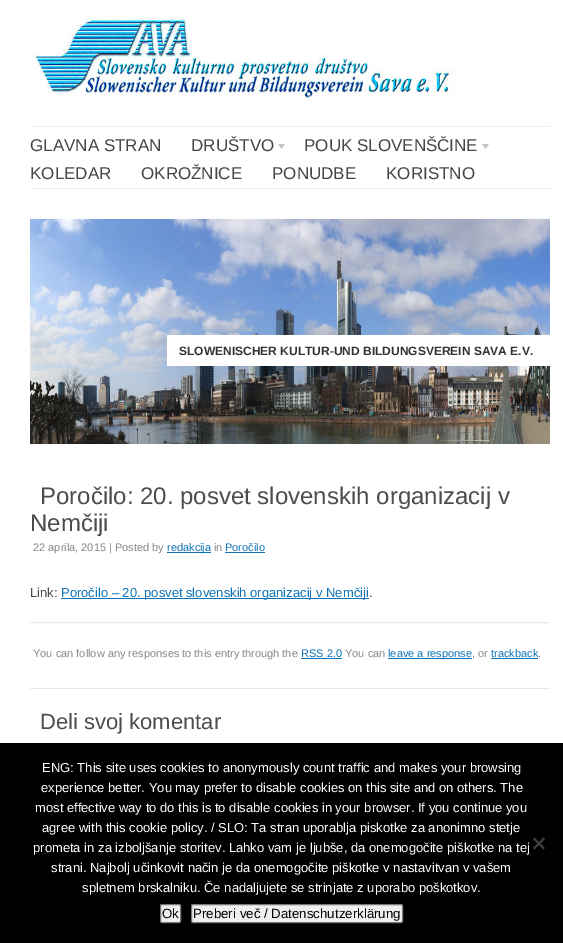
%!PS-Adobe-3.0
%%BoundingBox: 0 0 563 943
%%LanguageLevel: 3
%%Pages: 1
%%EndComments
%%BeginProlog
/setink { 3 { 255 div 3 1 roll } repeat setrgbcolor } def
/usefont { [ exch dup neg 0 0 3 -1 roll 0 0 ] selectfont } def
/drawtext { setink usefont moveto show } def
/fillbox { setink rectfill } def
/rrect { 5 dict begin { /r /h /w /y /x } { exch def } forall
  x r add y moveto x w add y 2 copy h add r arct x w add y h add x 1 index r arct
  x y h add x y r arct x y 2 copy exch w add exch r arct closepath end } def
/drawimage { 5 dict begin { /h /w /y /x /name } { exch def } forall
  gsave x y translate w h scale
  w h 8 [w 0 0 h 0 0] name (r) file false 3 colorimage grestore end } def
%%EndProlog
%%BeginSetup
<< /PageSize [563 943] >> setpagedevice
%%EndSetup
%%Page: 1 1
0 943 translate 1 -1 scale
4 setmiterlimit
0 0 563 943 255 255 255 fillbox
(assets/img1.rgb) 30 13 424 88 drawimage
30 126 520 1 238 238 238 fillbox
30 188 520 1 238 238 238 fillbox
(GLAVNA STRAN) 30 151 /LiberationSans-Regular 17 69 69 69 drawtext
(DRUŠTVO) 191 151 /LiberationSans-Regular 17 69 69 69 drawtext
(assets/img2.rgb) 278 144 7 5 drawimage
(POUK SLOVENŠČINE) 304 151 /LiberationSans-Regular 17 69 69 69 drawtext
(assets/img2.rgb) 482 144 7 5 drawimage
(KOLEDAR) 30 179 /LiberationSans-Regular 17 69 69 69 drawtext
(OKROŽNICE) 141 179 /LiberationSans-Regular 17 69 69 69 drawtext
(PONUDBE) 272 179 /LiberationSans-Regular 17 69 69 69 drawtext
(KORISTNO) 386 179 /LiberationSans-Regular 17 69 69 69 drawtext
(assets/img3.rgb) 30 219 520 225 drawimage
167 335 383 31 255 255 255 fillbox
(SLOWENISCHER KULTUR-UND BILDUNGSVEREIN SAVA E.V.) 179 355 /LiberationSans-Bold 12 51 51 51 drawtext
(Poročilo: 20. posvet slovenskih organizacij v) 40 504 /LiberationSans-Regular 24 77 77 79 drawtext
(Nemčiji) 30 531 /LiberationSans-Regular 24 77 77 79 drawtext
(22 aprila, 2015 | Posted by) 33 551 /LiberationSans-Regular 11 135 135 137 drawtext
167 552 44 1 14 115 184 fillbox
(redakcija) 167 551 /LiberationSans-Regular 11 14 115 184 drawtext
(in) 214 551 /LiberationSans-Regular 11 135 135 137 drawtext
(Poročilo) 225 551 /LiberationSans-Regular 11 14 115 184 drawtext
225 552 40 1 14 115 184 fillbox
(Link:) 30 597 /LiberationSans-Regular 13 77 77 79 drawtext
61 598 308 1 14 115 184 fillbox
(Poročilo – 20. posvet slovenskih organizacij v Nemčiji) 61 597 /LiberationSans-Regular 13 14 115 184 drawtext
(.) 369 597 /LiberationSans-Regular 13 77 77 79 drawtext
213 213 213 setink
[1 1] 0 setdash
30 622.5 moveto 550 622.5 lineto stroke
(You can follow any responses to this entry through the) 33 657 /LiberationSans-Regular 11 135 135 137 drawtext
(RSS 2.0) 301 657 /LiberationSans-Regular 11 14 115 184 drawtext
301 658 41 1 14 115 184 fillbox
(You can) 345 657 /LiberationSans-Regular 11 135 135 137 drawtext
388 658 84 1 14 115 184 fillbox
(leave a response) 388 657 /LiberationSans-Regular 11 14 115 184 drawtext
(, or) 472 657 /LiberationSans-Regular 11 135 135 137 drawtext
(trackback) 491 657 /LiberationSans-Regular 11 14 115 184 drawtext
(.) 538 657 /LiberationSans-Regular 11 135 135 137 drawtext
491 658 47 1 14 115 184 fillbox
30 688 520 1 231 231 231 fillbox
(Deli svoj komentar) 40 729 /LiberationSans-Regular 22 77 77 79 drawtext
0 743 563 200 0 0 0 fillbox
(ENG: This site uses cookies to anonymously count traffic and makes your browsing) 42 772 /LiberationSans-Regular 13 255 255 255 drawtext
(experience better. You may prefer to disable cookies on this site and on others. The) 41 792 /LiberationSans-Regular 13 255 255 255 drawtext
(most effective way to do this is to disable cookies in your browser. If you continue you) 35 812 /LiberationSans-Regular 13 255 255 255 drawtext
(agree with this cookie policy. / SLO: Ta stran uporablja piskotke za anonimno stetje) 42 832 /LiberationSans-Regular 13 255 255 255 drawtext
(prometa in za izboljšanje storitev. Lahko vam je ljubše, da onemogočite piškotke na tej) 33 852 /LiberationSans-Regular 13 255 255 255 drawtext
(strani. Najbolj učinkovit način je da onemogočite piškotke v nastavitvan v vašem) 51 872 /LiberationSans-Regular 13 255 255 255 drawtext
(spletnem brskalniku. Če nadaljujete se strinjate z uporabo poškotkov.) 82 892 /LiberationSans-Regular 13 255 255 255 drawtext
64 64 64 setink
543.5 837.5 moveto 545 839 lineto 534.5 849.5 lineto 533 848 lineto closepath fill
533 839 moveto 534.5 837.5 lineto 545 848 lineto 543.5 849.5 lineto closepath fill
239 239 239 setink
160.5 904.5 20 18 1.5 rrect gsave fill grestore
118 118 118 setink
[] 0 setdash
stroke
(Ok) 162 918 /LiberationSans-Regular 13.3 0 0 0 drawtext
239 239 239 setink
191.5 904.5 211 18 1.5 rrect gsave fill grestore
118 118 118 setink
stroke
(Preberi več / Datenschutzerklärung) 193 918 /LiberationSans-Regular 13.3 0 0 0 drawtext
showpage
%%EOF
